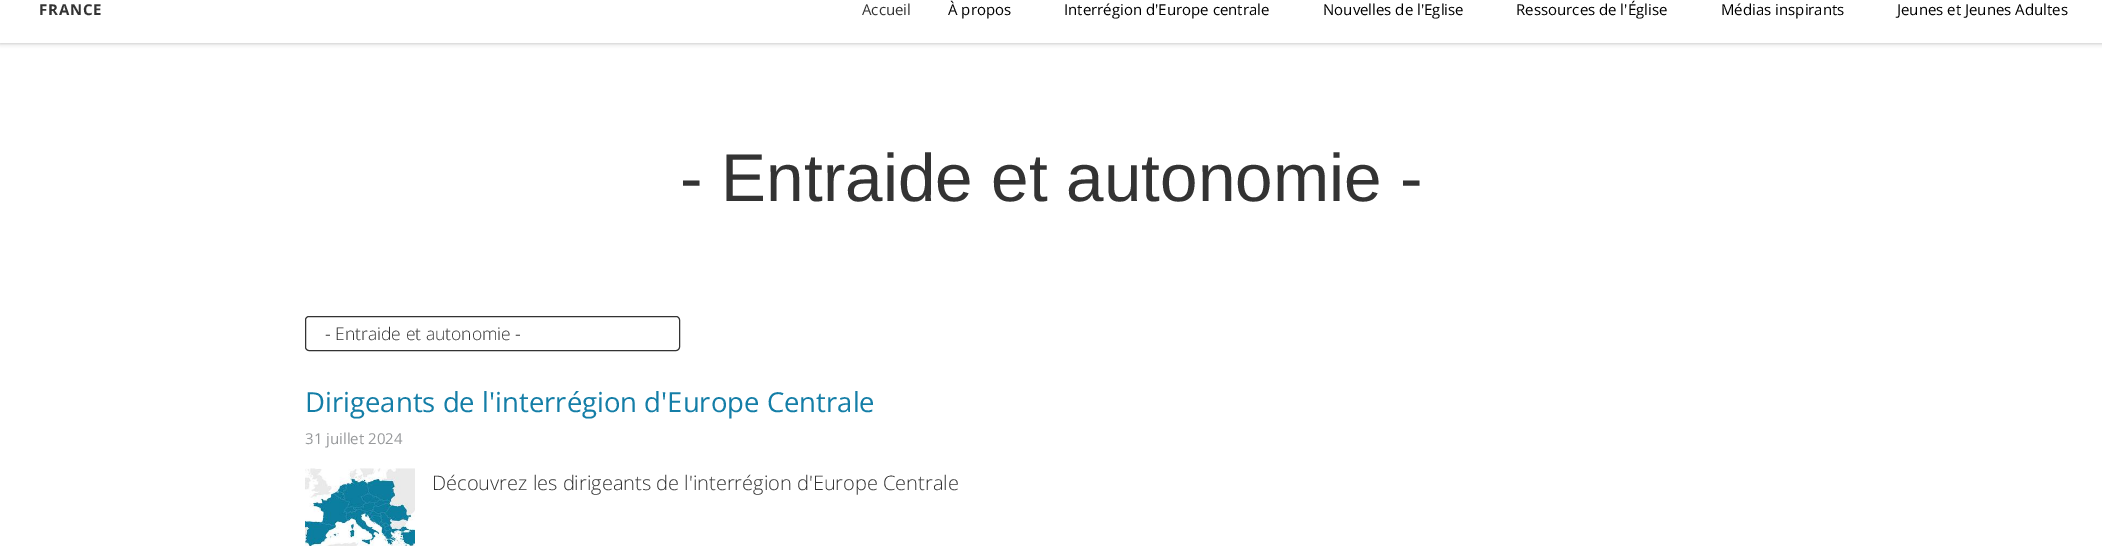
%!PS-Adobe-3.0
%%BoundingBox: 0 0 2102 546
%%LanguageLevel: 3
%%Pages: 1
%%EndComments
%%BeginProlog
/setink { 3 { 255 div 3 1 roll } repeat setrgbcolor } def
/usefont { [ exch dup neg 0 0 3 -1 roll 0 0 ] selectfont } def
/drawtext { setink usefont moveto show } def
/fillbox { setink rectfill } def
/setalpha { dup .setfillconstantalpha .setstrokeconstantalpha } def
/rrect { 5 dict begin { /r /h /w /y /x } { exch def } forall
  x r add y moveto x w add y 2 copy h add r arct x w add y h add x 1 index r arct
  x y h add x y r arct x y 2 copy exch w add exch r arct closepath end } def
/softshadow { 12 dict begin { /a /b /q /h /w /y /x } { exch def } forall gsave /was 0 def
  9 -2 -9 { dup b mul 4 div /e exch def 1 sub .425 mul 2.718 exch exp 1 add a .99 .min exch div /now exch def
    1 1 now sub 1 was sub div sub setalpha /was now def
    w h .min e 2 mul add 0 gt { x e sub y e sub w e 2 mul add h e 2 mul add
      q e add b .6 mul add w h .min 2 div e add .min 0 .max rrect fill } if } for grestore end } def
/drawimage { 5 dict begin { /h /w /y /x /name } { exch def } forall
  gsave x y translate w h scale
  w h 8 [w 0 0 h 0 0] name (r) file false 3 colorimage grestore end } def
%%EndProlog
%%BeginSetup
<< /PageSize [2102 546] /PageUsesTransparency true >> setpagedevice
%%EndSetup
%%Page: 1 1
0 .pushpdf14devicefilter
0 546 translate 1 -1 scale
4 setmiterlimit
0 0 2102 546 255 255 255 fillbox
0 0 0 setink
0 -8 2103 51 0 2.5 0.3 softshadow
0 0 2102 43 255 255 255 fillbox
/OpenSans-Bold 15 usefont
51 51 51 setink
39 15 moveto 0.75 0 (FRANCE) ashow
(Accueil) 862 15 /OpenSans-Regular 15 51 51 51 drawtext
(À propos) 948 15 /OpenSans-Regular 15 0 0 0 drawtext
(Interrégion d'Europe centrale) 1064 15 /OpenSans-Regular 15 0 0 0 drawtext
(Nouvelles de l'Eglise) 1323 15 /OpenSans-Regular 15 0 0 0 drawtext
(Ressources de l'Église) 1516 15 /OpenSans-Regular 15 0 0 0 drawtext
(Médias inspirants) 1721 15 /OpenSans-Regular 15 0 0 0 drawtext
(Jeunes et Jeunes Adultes) 1897 15 /OpenSans-Regular 15 0 0 0 drawtext
(- Entraide et autonomie -) 680 201 /LiberationSans-Regular 67.5 51 51 51 drawtext
305.5 316.5 374 34 3.5 rrect stroke
(- Entraide et autonomie -) 325 340 /OpenSans-Light 17.5 51 51 51 drawtext
(Dirigeants de l'interrégion d'Europe Centrale) 305 412 /OpenSans-Regular 27.5 20 126 167 drawtext
(31 juillet 2024) 305 444 /OpenSans-Regular 15 151 153 155 drawtext
(assets/img1.rgb) 305 468 110 78 drawimage
(Découvrez les dirigeants de l'interrégion d'Europe Centrale) 432 490 /OpenSans-Light 20 51 51 51 drawtext
.poppdf14devicefilter showpage
%%EOF
